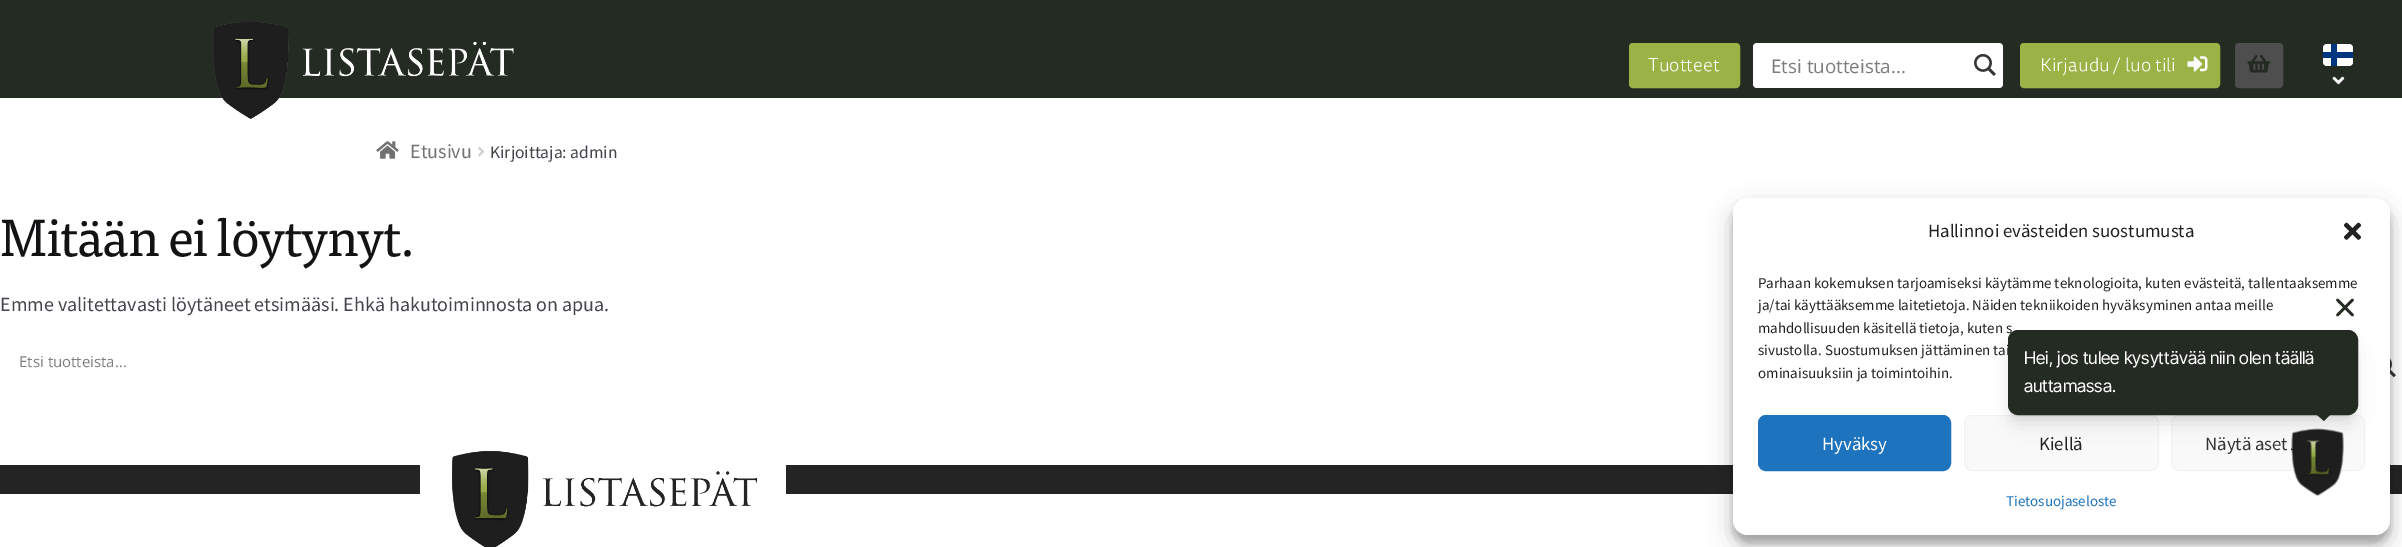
%!PS-Adobe-3.0
%%BoundingBox: 0 0 2402 547
%%LanguageLevel: 3
%%Pages: 1
%%EndComments
%%BeginProlog
/setink { 3 { 255 div 3 1 roll } repeat setrgbcolor } def
/usefont { [ exch dup neg 0 0 3 -1 roll 0 0 ] selectfont } def
/drawtext { setink usefont moveto show } def
/fillbox { setink rectfill } def
/setalpha { dup .setfillconstantalpha .setstrokeconstantalpha } def
/rrect { 5 dict begin { /r /h /w /y /x } { exch def } forall
  x r add y moveto x w add y 2 copy h add r arct x w add y h add x 1 index r arct
  x y h add x y r arct x y 2 copy exch w add exch r arct closepath end } def
/softshadow { 12 dict begin { /a /b /q /h /w /y /x } { exch def } forall gsave /was 0 def
  9 -2 -9 { dup b mul 4 div /e exch def 1 sub .425 mul 2.718 exch exp 1 add a .99 .min exch div /now exch def
    1 1 now sub 1 was sub div sub setalpha /was now def
    w h .min e 2 mul add 0 gt { x e sub y e sub w e 2 mul add h e 2 mul add
      q e add b .6 mul add w h .min 2 div e add .min 0 .max rrect fill } if } for grestore end } def
/drawimage { 5 dict begin { /h /w /y /x /name } { exch def } forall
  gsave x y translate w h scale
  w h 8 [w 0 0 h 0 0] name (r) file false 3 colorimage grestore end } def
%%EndProlog
%%BeginSetup
<< /PageSize [2402 547] /PageUsesTransparency true >> setpagedevice
%%EndSetup
%%Page: 1 1
0 .pushpdf14devicefilter
0 547 translate 1 -1 scale
4 setmiterlimit
0 0 2402 547 255 255 255 fillbox
0 0 2402 98 36 43 34 fillbox
155 178 70 setink
1631 45 107 41 2 rrect gsave fill grestore
4 setlinewidth
stroke
(Tuotteet) 1648 71 /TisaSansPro-Light 18.75 255 255 255 drawtext
155 178 70 setink
2022 45 196 41 2 rrect gsave fill grestore
stroke
(Kirjaudu / luo tili) 2040 71 /TisaSansPro-Light 18.75 255 255 255 drawtext
(assets/img1.rgb) 2187 56 21 16 drawimage
2323 44 30 22 4 rrect fill
2323 52 30 6 0 53 128 fillbox
2331 44 6 22 0 53 128 fillbox
(assets/img2.rgb) 2332 76 13 9 drawimage
78 78 78 setink
2237 45 44 41 2 rrect gsave fill grestore
stroke
(assets/img3.rgb) 2247 55 23 18 drawimage
(assets/img4.rgb) 213 21 301 98 drawimage
255 255 255 setink
1753 43 250 45 4 rrect fill
(Etsi tuotteista...) 1771 73 /OpenSans-Regular 18.75 125 125 125 drawtext
(assets/img5.rgb) 1974 54 22 22 drawimage
(assets/img6.rgb) 376 141 23 18 drawimage
(Etusivu) 410 158 /SourceSansPro-Regular 20 114 114 114 drawtext
(assets/img7.rgb) 478 147 7 10 drawimage
(Kirjoittaja: admin) 490 158 /SourceSansPro-Regular 17.5 67 69 75 drawtext
/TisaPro-Regular 52.25 usefont
19 19 21 setink
0 256 moveto -1.25 0 (Mitään ei löytynyt.) ashow
(Emme valitettavasti löytäneet etsimääsi. Ehkä hakutoiminnosta on apua.) 0 311 /SourceSansPro-Regular 20 67 69 75 drawtext
(Etsi tuotteista...) 19 367 /OpenSans-Regular 15 125 125 125 drawtext
(assets/img8.rgb) 2390 358 6 20 drawimage
0 465 2402 29 36 36 36 fillbox
420 465 366 29 255 255 255 fillbox
(assets/img9.rgb) 452 451 306 96 drawimage
0 0 0 setink
1733 205 657 338 15 4 0.23 softshadow
1733 210 657 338 15 12.5 0.19 softshadow
255 255 255 setink
1733 198 657 337 15 rrect fill
(Hallinnoi evästeiden suostumusta) 1928 237 /SourceSansPro-Regular 18.75 34 34 34 drawtext
(assets/img10.rgb) 2343 222 19 18 drawimage
(Parhaan kokemuksen tarjoamiseksi käytämme teknologioita, kuten evästeitä, tallentaaksemme) 1758 288 /SourceSansPro-Regular 15 34 34 34 drawtext
(ja/tai käyttääksemme laitetietoja. Näiden tekniikoiden hyväksyminen antaa meille) 1758 310 /SourceSansPro-Regular 15 34 34 34 drawtext
(mahdollisuuden käsitellä tietoja, kuten s) 1758 333 /SourceSansPro-Regular 15 34 34 34 drawtext
(sivustolla. Suostumuksen jättäminen tai) 1758 355 /SourceSansPro-Regular 15 34 34 34 drawtext
(ominaisuuksiin ja toimintoihin.) 1758 378 /SourceSansPro-Regular 15 34 34 34 drawtext
30 115 190 setink
1758.5 415.5 192 55 7.5 rrect gsave fill grestore
1 setlinewidth
stroke
(Hyväksy) 1822 450 /SourceSansPro-Regular 18.75 255 255 255 drawtext
249 249 249 setink
1964.5 415.5 194 55 7.5 rrect gsave fill grestore
242 242 242 setink
stroke
(Kiellä) 2039 450 /SourceSansPro-Regular 18.75 34 34 34 drawtext
249 249 249 setink
2171.5 415.5 193 55 7.5 rrect gsave fill grestore
242 242 242 setink
stroke
(Näytä aset) 2205 450 /SourceSansPro-Regular 18.75 51 51 51 drawtext
(Tietosuojaseloste) 2006 506 /SourceSansPro-Regular 15 30 115 190 drawtext
(assets/img11.rgb) 2291 428 53 68 drawimage
0 0 0 setink
2011 346 343 78 6 9.5 0.1 softshadow
36 43 34 setink
2.5 setlinewidth
1 setlinecap
1 setlinejoin
2352.5 300 moveto 2337.5 315 lineto 2337.5 300 moveto 2352.5 315 lineto stroke
0 0 0 setink
2010 338 345 80 8 4 0.05 softshadow
36 43 34 setink
2008.5 330.5 349 84 9.5 rrect gsave fill grestore
1 setlinewidth
0 setlinecap
0 setlinejoin
stroke
(Hei, jos tulee kysyttävää niin olen täällä) 2024 364 /InterTight-Regular 17.5 255 255 255 drawtext
(auttamassa.) 2024 392 /InterTight-Regular 17.5 255 255 255 drawtext
36 43 34 setink
2316 414 moveto 2331 414 lineto 2324 421 lineto closepath fill
.poppdf14devicefilter showpage
%%EOF
